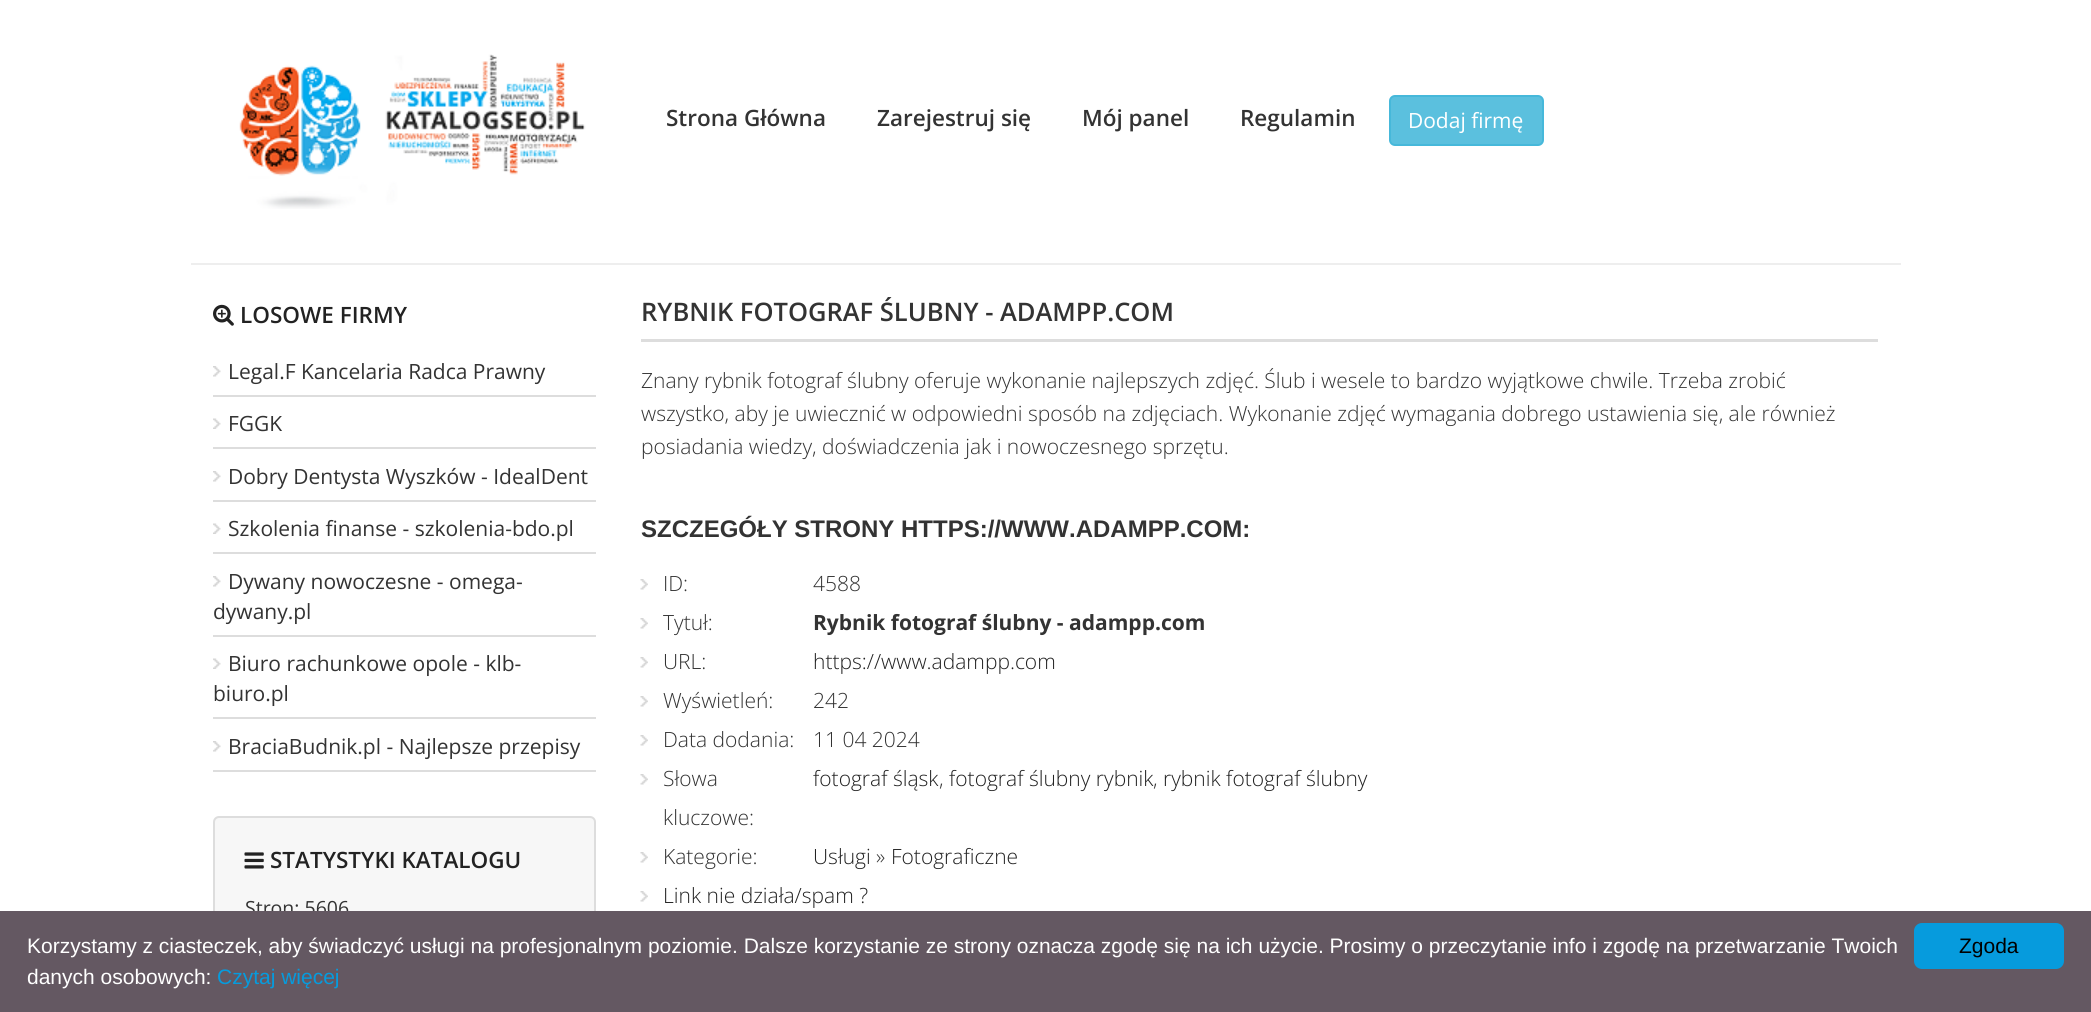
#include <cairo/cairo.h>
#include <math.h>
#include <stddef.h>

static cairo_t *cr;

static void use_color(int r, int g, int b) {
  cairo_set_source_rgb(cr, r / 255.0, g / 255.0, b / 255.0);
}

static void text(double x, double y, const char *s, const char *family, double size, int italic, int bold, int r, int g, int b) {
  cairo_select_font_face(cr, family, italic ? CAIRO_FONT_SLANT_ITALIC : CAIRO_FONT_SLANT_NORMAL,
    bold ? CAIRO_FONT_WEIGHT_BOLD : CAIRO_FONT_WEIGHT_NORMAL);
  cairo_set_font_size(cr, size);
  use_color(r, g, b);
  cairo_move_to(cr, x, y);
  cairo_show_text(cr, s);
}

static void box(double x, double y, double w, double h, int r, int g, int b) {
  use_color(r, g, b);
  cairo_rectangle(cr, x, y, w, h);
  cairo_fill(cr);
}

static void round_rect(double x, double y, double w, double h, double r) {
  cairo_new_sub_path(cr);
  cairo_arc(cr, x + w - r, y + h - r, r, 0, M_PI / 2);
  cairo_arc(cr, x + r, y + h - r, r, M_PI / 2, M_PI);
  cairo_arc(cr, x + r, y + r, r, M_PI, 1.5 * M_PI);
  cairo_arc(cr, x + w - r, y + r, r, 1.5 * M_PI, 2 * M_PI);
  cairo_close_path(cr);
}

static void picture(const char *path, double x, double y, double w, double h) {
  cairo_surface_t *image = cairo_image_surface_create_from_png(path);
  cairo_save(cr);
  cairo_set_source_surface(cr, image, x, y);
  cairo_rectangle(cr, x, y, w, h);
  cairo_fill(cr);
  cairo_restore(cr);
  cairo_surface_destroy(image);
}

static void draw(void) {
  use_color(255, 255, 255);
  cairo_paint(cr);
  picture("img_01.png", 239, 54, 347, 155);
  use_color(91, 192, 222);
  round_rect(1390, 96, 153, 49, 5);
  cairo_fill_preserve(cr);
  use_color(70, 184, 218);
  cairo_stroke(cr);
  box(191, 263, 1710, 2, 238, 238, 238);
  picture("img_02.png", 213, 304, 21, 22);
  box(213, 395, 383, 2, 221, 221, 221);
  picture("img_03.png", 213, 366, 8, 11);
  box(213, 447, 383, 2, 221, 221, 221);
  picture("img_04.png", 213, 418, 8, 11);
  box(213, 500, 383, 2, 221, 221, 221);
  picture("img_03.png", 213, 471, 8, 11);
  box(213, 552, 383, 2, 221, 221, 221);
  picture("img_04.png", 213, 523, 8, 11);
  box(213, 635, 383, 2, 221, 221, 221);
  picture("img_03.png", 213, 576, 8, 11);
  box(213, 717, 383, 2, 221, 221, 221);
  picture("img_04.png", 213, 658, 8, 11);
  box(213, 770, 383, 2, 221, 221, 221);
  picture("img_03.png", 213, 741, 8, 11);
  use_color(247, 247, 247);
  round_rect(214, 817, 381, 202, 5);
  cairo_fill_preserve(cr);
  use_color(221, 221, 221);
  cairo_stroke(cr);
  picture("img_05.png", 244, 852, 20, 17);
  box(641, 339, 1237, 3, 221, 221, 221);
  picture("img_06.png", 640, 579, 8, 11);
  picture("img_06.png", 640, 618, 8, 11);
  picture("img_06.png", 640, 657, 8, 11);
  picture("img_06.png", 640, 696, 8, 11);
  picture("img_06.png", 640, 735, 8, 11);
  picture("img_06.png", 640, 774, 8, 11);
  picture("img_06.png", 640, 852, 8, 11);
  picture("img_06.png", 640, 891, 8, 11);
  text(666, 126, "Strona Główna", "Open Sans SemiBold", 22.5, 0, 0, 51, 51, 51);
  text(877, 126, "Zarejestruj się", "Open Sans SemiBold", 22.5, 0, 0, 51, 51, 51);
  text(1082, 126, "Mój panel", "Open Sans SemiBold", 22.5, 0, 0, 51, 51, 51);
  text(1240, 126, "Regulamin", "Open Sans SemiBold", 22.5, 0, 0, 51, 51, 51);
  text(1408, 128, "Dodaj firmę", "Open Sans", 21, 0, 0, 255, 255, 255);
  text(240, 323, "LOSOWE FIRMY", "Open Sans SemiBold", 22.5, 0, 0, 34, 34, 34);
  text(228, 379, "Legal.F Kancelaria Radca Prawny", "Open Sans", 21, 0, 0, 51, 51, 51);
  text(228, 431, "FGGK", "Open Sans", 21, 0, 0, 51, 51, 51);
  text(228, 484, "Dobry Dentysta Wyszków - IdealDent", "Open Sans", 21, 0, 0, 51, 51, 51);
  text(228, 536, "Szkolenia finanse - szkolenia-bdo.pl", "Open Sans", 21, 0, 0, 51, 51, 51);
  text(228, 589, "Dywany nowoczesne - omega-", "Open Sans", 21, 0, 0, 51, 51, 51);
  text(213, 619, "dywany.pl", "Open Sans", 21, 0, 0, 51, 51, 51);
  text(228, 671, "Biuro rachunkowe opole - klb-", "Open Sans", 21, 0, 0, 51, 51, 51);
  text(213, 701, "biuro.pl", "Open Sans", 21, 0, 0, 51, 51, 51);
  text(228, 754, "BraciaBudnik.pl - Najlepsze przepisy", "Open Sans", 21, 0, 0, 51, 51, 51);
  text(270, 868, "STATYSTYKI KATALOGU", "Open Sans SemiBold", 22.5, 0, 0, 34, 34, 34);
  text(245, 915, "Stron: 5606", "Open Sans", 19.5, 0, 0, 51, 51, 51);
  text(641, 321, "RYBNIK FOTOGRAF ŚLUBNY - ADAMPP.COM", "Open Sans SemiBold", 25.5, 0, 0, 51, 51, 51);
  text(641, 388, "Znany rybnik fotograf ślubny oferuje wykonanie najlepszych zdjęć. Ślub i wesele to bardzo wyjątkowe chwile. Trzeba zrobić", "Open Sans Light", 21, 0, 0, 51, 51, 51);
  text(641, 421, "wszystko, aby je uwiecznić w odpowiedni sposób na zdjęciach. Wykonanie zdjęć wymagania dobrego ustawienia się, ale również", "Open Sans Light", 21, 0, 0, 51, 51, 51);
  text(641, 454, "posiadania wiedzy, doświadczenia jak i nowoczesnego sprzętu.", "Open Sans Light", 21, 0, 0, 51, 51, 51);
  text(641, 537, "SZCZEGÓŁY STRONY HTTPS://WWW.ADAMPP.COM:", "Liberation Sans", 24, 0, 1, 51, 51, 51);
  text(663, 591, "ID:", "Open Sans Light", 21, 0, 0, 51, 51, 51);
  text(813, 591, "4588", "Open Sans Light", 21, 0, 0, 51, 51, 51);
  text(663, 630, "Tytuł:", "Open Sans Light", 21, 0, 0, 51, 51, 51);
  text(813, 630, "Rybnik fotograf ślubny - adampp.com", "Open Sans", 21, 0, 1, 51, 51, 51);
  text(663, 669, "URL:", "Open Sans Light", 21, 0, 0, 51, 51, 51);
  text(813, 669, "https://www.adampp.com", "Open Sans Light", 21, 0, 0, 34, 34, 34);
  text(663, 708, "Wyświetleń:", "Open Sans Light", 21, 0, 0, 51, 51, 51);
  text(813, 708, "242", "Open Sans Light", 21, 0, 0, 51, 51, 51);
  text(663, 747, "Data dodania:", "Open Sans Light", 21, 0, 0, 51, 51, 51);
  text(813, 747, "11 04 2024", "Open Sans Light", 21, 0, 0, 51, 51, 51);
  text(663, 786, "Słowa", "Open Sans Light", 21, 0, 0, 51, 51, 51);
  text(663, 825, "kluczowe:", "Open Sans Light", 21, 0, 0, 51, 51, 51);
  text(813, 786, "fotograf śląsk", "Open Sans Light", 21, 0, 0, 34, 34, 34);
  text(939, 786, ",", "Open Sans Light", 21, 0, 0, 51, 51, 51);
  text(949, 786, "fotograf ślubny rybnik", "Open Sans Light", 21, 0, 0, 34, 34, 34);
  text(1153, 786, ",", "Open Sans Light", 21, 0, 0, 51, 51, 51);
  text(1163, 786, "rybnik fotograf ślubny", "Open Sans Light", 21, 0, 0, 34, 34, 34);
  text(663, 864, "Kategorie:", "Open Sans Light", 21, 0, 0, 51, 51, 51);
  text(813, 864, "Usługi", "Open Sans Light", 21, 0, 0, 34, 34, 34);
  text(876, 864, "»", "Open Sans Light", 21, 0, 0, 51, 51, 51);
  text(891, 864, "Fotograficzne", "Open Sans Light", 21, 0, 0, 34, 34, 34);
  text(663, 903, "Link nie działa/spam ?", "Open Sans Light", 21, 0, 0, 34, 34, 34);
  box(0, 911, 2091, 101, 100, 88, 98);
  text(27, 953, "Korzystamy z ciasteczek, aby świadczyć usługi na profesjonalnym poziomie. Dalsze korzystanie ze strony oznacza zgodę się na ich użycie. Prosimy o przeczytanie info i zgodę na przetwarzanie Twoich", "Liberation Sans", 21, 0, 0, 255, 255, 255);
  text(27, 984, "danych osobowych:", "Liberation Sans", 21, 0, 0, 255, 255, 255);
  text(217, 984, "Czytaj więcej", "Liberation Sans", 21, 0, 0, 6, 155, 221);
  round_rect(1914, 923, 150, 46, 8);
  cairo_fill(cr);
  text(1959, 953, "Zgoda", "Liberation Sans", 21, 0, 0, 0, 0, 0);
}

int main(void) {
  cairo_surface_t *surface = cairo_image_surface_create(CAIRO_FORMAT_RGB24, 2091, 1012);
  cr = cairo_create(surface);
  cairo_font_options_t *options = cairo_font_options_create();
  cairo_font_options_set_hint_metrics(options, CAIRO_HINT_METRICS_OFF);
  cairo_font_options_set_hint_style(options, CAIRO_HINT_STYLE_NONE);
  cairo_set_font_options(cr, options);
  cairo_set_miter_limit(cr, 4);
  draw();
  cairo_surface_write_to_png(surface, "out.png");
  cairo_font_options_destroy(options);
  cairo_destroy(cr);
  cairo_surface_destroy(surface);
  return 0;
}
